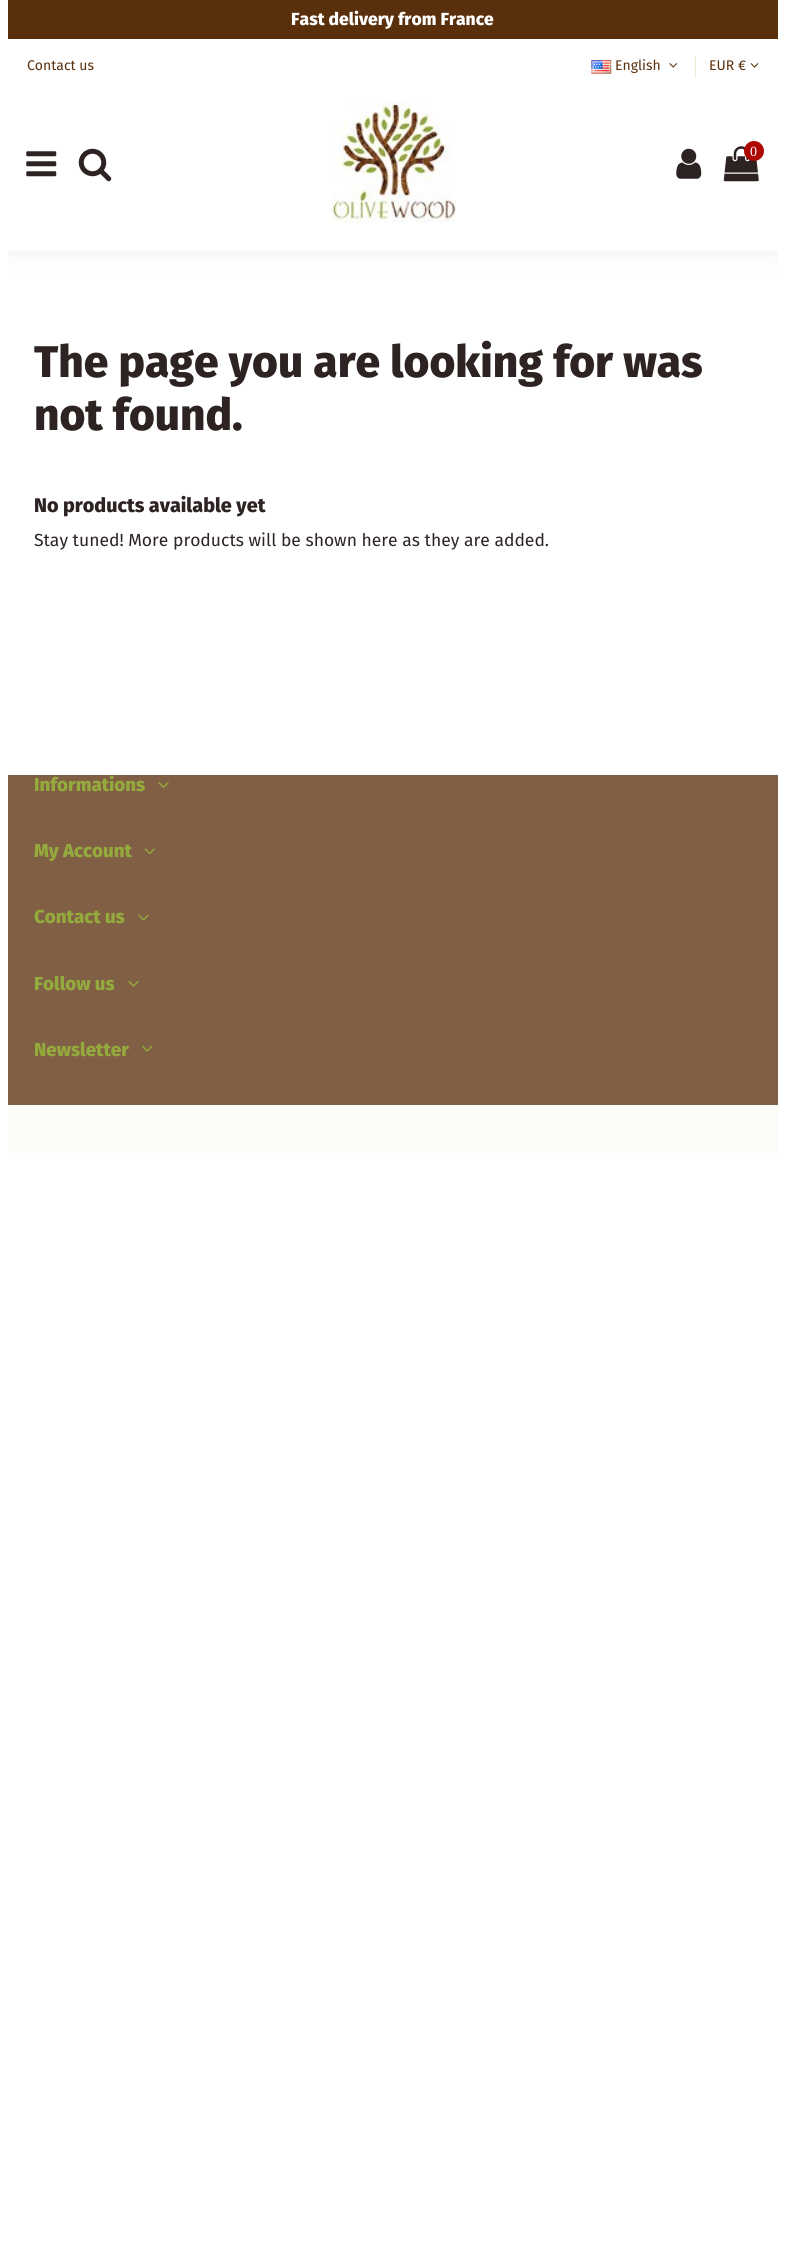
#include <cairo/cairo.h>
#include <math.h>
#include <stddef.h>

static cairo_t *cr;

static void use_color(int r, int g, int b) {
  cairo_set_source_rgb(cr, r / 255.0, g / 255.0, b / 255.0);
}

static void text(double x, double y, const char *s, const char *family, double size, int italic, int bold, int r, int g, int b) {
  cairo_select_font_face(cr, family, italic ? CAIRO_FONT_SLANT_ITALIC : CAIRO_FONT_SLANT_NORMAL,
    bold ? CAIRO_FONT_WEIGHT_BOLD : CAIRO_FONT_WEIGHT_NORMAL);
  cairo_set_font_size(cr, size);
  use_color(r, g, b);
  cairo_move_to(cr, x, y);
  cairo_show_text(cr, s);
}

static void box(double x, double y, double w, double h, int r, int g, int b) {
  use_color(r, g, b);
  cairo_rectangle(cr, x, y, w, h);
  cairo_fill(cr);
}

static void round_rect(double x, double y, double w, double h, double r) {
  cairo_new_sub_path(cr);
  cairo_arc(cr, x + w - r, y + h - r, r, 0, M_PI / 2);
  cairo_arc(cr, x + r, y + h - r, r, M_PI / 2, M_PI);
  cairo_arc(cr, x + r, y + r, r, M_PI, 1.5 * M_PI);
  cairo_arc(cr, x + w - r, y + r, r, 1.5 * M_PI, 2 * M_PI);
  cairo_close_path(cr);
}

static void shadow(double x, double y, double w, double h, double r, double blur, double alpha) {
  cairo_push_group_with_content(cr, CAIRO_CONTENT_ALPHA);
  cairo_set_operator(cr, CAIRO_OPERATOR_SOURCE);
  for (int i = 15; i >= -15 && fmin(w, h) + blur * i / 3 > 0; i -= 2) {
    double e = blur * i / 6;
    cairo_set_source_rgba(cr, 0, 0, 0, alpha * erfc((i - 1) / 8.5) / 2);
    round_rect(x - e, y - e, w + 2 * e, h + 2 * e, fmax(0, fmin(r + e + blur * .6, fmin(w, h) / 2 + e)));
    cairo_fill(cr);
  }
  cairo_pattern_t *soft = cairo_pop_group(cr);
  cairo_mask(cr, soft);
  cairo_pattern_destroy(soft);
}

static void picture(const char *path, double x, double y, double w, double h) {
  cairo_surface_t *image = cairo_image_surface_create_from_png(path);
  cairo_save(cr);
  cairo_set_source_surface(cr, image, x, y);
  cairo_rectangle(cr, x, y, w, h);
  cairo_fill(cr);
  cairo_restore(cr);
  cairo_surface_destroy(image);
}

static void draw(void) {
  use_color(255, 255, 255);
  cairo_paint(cr);
  cairo_save(cr);
  cairo_rectangle(cr, 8, 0, 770, 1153);
  cairo_clip(cr);
  use_color(0, 0, 0);
  shadow(8, 0, 770, 255, 0, 12.5, 0.05);
  cairo_restore(cr);
  box(8, 39, 770, 212, 255, 255, 255);
  box(8, 251, 770, 4, 248, 248, 248);
  box(8, 0, 770, 39, 90, 47, 12);
  picture("img_01.png", 591, 60, 21, 14);
  picture("img_02.png", 669, 63, 9, 5);
  box(695, 56, 1, 22, 234, 238, 216);
  picture("img_03.png", 750, 63, 9, 5);
  picture("img_04.png", 26, 151, 31, 26);
  picture("img_05.png", 78, 148, 34, 34);
  picture("img_06.png", 331, 102, 125, 121);
  picture("img_07.png", 676, 148, 26, 31);
  picture("img_08.png", 723, 146, 36, 36);
  use_color(173, 7, 0);
  cairo_arc(cr, 754, 151, 10, 0, 2 * M_PI);
  cairo_fill(cr);
  box(8, 775, 770, 330, 128, 95, 68);
  picture("img_09.png", 158, 782, 11, 6);
  picture("img_10.png", 144, 848, 11, 7);
  picture("img_11.png", 138, 914, 11, 7);
  picture("img_12.png", 128, 980, 11, 7);
  picture("img_13.png", 142, 1045, 11, 7);
  box(8, 1105, 770, 48, 252, 253, 246);
  text(291, 25, "Fast delivery from France", "Fira Sans ExtraBold", 17.5, 0, 0, 255, 255, 255);
  text(27, 70, "Contact us", "Fira Sans", 14, 0, 0, 90, 47, 12);
  text(615, 70, "English", "Fira Sans", 14, 0, 0, 90, 47, 12);
  text(709, 70, "EUR €", "Fira Sans", 14, 0, 0, 90, 47, 12);
  text(750, 156, "0", "Liberation Serif", 14, 0, 0, 255, 255, 255);
  text(34, 377, "The page you are looking for was", "Fira Sans ExtraBold", 44.3, 0, 0, 46, 35, 35);
  text(34, 430, "not found.", "Fira Sans ExtraBold", 44.3, 0, 0, 46, 35, 35);
  text(34, 512, "No products available yet", "Fira Sans ExtraBold", 19.75, 0, 0, 46, 35, 35);
  text(34, 546, "Stay tuned! More products will be shown here as they are added.", "Fira Sans", 17.5, 0, 0, 46, 35, 35);
  text(34, 791, "Informations", "Fira Sans ExtraBold", 18.75, 0, 0, 148, 170, 61);
  text(34, 857, "My Account", "Fira Sans ExtraBold", 18.75, 0, 0, 148, 170, 61);
  text(34, 923, "Contact us", "Fira Sans ExtraBold", 18.75, 0, 0, 148, 170, 61);
  text(34, 990, "Follow us", "Fira Sans ExtraBold", 18.75, 0, 0, 148, 170, 61);
  text(34, 1056, "Newsletter", "Fira Sans ExtraBold", 18.75, 0, 0, 148, 170, 61);
}

int main(void) {
  cairo_surface_t *surface = cairo_image_surface_create(CAIRO_FORMAT_RGB24, 785, 2243);
  cr = cairo_create(surface);
  cairo_font_options_t *options = cairo_font_options_create();
  cairo_font_options_set_hint_metrics(options, CAIRO_HINT_METRICS_OFF);
  cairo_font_options_set_hint_style(options, CAIRO_HINT_STYLE_NONE);
  cairo_set_font_options(cr, options);
  cairo_set_miter_limit(cr, 4);
  draw();
  cairo_surface_write_to_png(surface, "out.png");
  cairo_font_options_destroy(options);
  cairo_destroy(cr);
  cairo_surface_destroy(surface);
  return 0;
}
